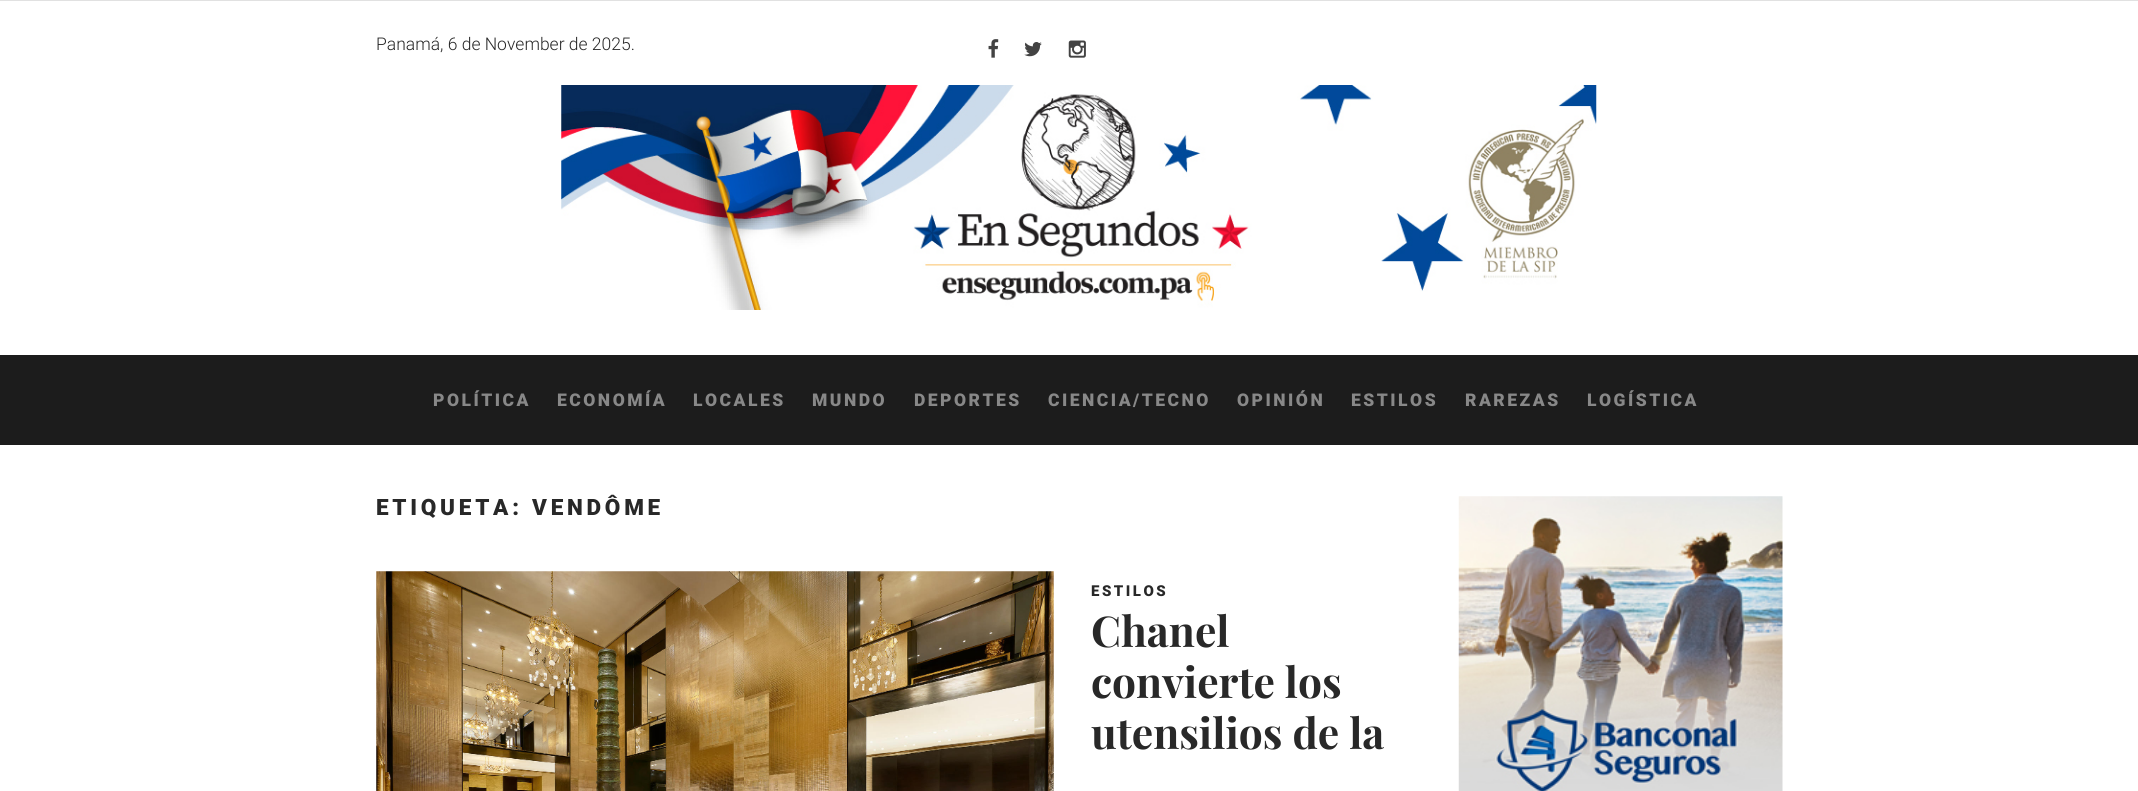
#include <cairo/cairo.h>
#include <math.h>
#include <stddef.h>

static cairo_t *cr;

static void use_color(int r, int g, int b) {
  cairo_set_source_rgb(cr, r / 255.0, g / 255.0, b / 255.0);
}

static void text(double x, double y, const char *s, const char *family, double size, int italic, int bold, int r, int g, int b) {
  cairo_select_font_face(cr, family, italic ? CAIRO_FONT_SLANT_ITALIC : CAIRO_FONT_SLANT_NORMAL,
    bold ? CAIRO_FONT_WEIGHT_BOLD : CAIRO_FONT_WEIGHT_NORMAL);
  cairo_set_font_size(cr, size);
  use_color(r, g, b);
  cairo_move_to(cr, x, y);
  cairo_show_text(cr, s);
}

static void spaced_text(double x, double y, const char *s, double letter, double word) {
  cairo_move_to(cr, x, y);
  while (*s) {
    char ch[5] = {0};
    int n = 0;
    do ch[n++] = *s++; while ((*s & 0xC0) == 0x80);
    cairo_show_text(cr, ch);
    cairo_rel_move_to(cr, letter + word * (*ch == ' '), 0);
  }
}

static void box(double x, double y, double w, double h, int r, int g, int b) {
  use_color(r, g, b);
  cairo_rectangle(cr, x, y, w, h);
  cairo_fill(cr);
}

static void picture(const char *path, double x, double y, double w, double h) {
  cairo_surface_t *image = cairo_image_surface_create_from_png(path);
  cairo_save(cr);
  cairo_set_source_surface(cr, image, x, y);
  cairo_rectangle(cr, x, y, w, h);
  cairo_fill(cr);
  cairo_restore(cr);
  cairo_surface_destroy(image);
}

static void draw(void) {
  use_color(255, 255, 255);
  cairo_paint(cr);
  box(0, 0, 2138, 1, 225, 225, 225);
  picture("img_01.png", 988, 39, 11, 19);
  picture("img_02.png", 1024, 42, 18, 15);
  picture("img_03.png", 1068, 40, 18, 18);
  picture("img_04.png", 561, 85, 1036, 225);
  box(0, 355, 2138, 90, 28, 28, 28);
  picture("img_05.png", 376, 571, 678, 220);
  picture("img_06.png", 1458, 496, 325, 295);
  text(376, 50, "Panamá, 6 de November de 2025.", "Roboto Light", 17.5, 0, 0, 40, 40, 40);
  cairo_select_font_face(cr, "Roboto Black", CAIRO_FONT_SLANT_NORMAL, CAIRO_FONT_WEIGHT_NORMAL);
  use_color(136, 136, 136);
  spaced_text(433, 406, "POLÍTICA", 2.5, 0);
  spaced_text(557, 406, "ECONOMÍA", 2.5, 0);
  spaced_text(693, 406, "LOCALES", 2.5, 0);
  spaced_text(812, 406, "MUNDO", 2.5, 0);
  spaced_text(914, 406, "DEPORTES", 2.5, 0);
  spaced_text(1048, 406, "CIENCIA/TECNO", 2.5, 0);
  spaced_text(1237, 406, "OPINIÓN", 2.5, 0);
  spaced_text(1351, 406, "ESTILOS", 2.5, 0);
  spaced_text(1465, 406, "RAREZAS", 2.5, 0);
  spaced_text(1587, 406, "LOGÍSTICA", 2.5, 0);
  cairo_set_font_size(cr, 22.5);
  use_color(40, 40, 40);
  spaced_text(376, 515, "ETIQUETA: VENDÔME", 3.75, 0);
  cairo_set_font_size(cr, 15);
  spaced_text(1091, 596, "ESTILOS", 2.5, 0);
  text(1091, 647, "Chanel", "Playfair Display", 42.5, 0, 1, 40, 40, 40);
  text(1091, 698, "convierte los", "Playfair Display", 42.5, 0, 1, 40, 40, 40);
  text(1091, 749, "utensilios de la", "Playfair Display", 42.5, 0, 1, 40, 40, 40);
}

int main(void) {
  cairo_surface_t *surface = cairo_image_surface_create(CAIRO_FORMAT_RGB24, 2138, 791);
  cr = cairo_create(surface);
  cairo_font_options_t *options = cairo_font_options_create();
  cairo_font_options_set_hint_metrics(options, CAIRO_HINT_METRICS_OFF);
  cairo_font_options_set_hint_style(options, CAIRO_HINT_STYLE_NONE);
  cairo_set_font_options(cr, options);
  cairo_set_miter_limit(cr, 4);
  draw();
  cairo_surface_write_to_png(surface, "out.png");
  cairo_font_options_destroy(options);
  cairo_destroy(cr);
  cairo_surface_destroy(surface);
  return 0;
}
